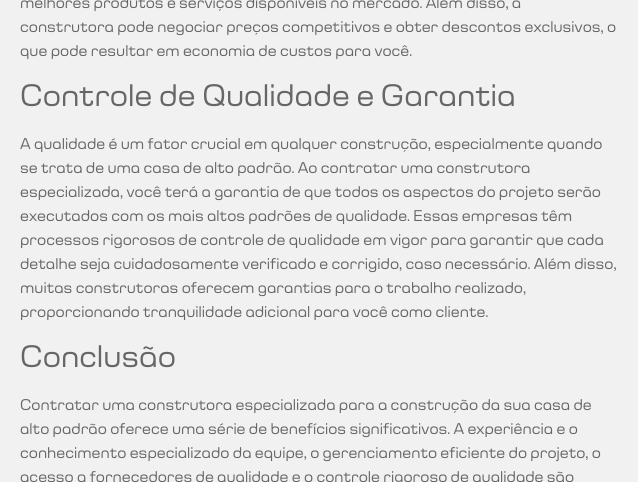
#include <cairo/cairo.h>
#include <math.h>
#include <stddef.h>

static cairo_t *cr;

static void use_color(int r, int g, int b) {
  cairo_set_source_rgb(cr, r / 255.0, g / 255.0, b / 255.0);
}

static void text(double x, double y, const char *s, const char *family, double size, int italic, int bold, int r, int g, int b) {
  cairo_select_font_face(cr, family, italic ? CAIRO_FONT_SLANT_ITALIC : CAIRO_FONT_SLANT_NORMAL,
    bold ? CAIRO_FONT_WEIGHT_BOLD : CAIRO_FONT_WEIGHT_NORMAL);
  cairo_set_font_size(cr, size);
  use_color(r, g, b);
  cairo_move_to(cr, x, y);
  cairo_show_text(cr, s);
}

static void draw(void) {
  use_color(241, 241, 241);
  cairo_paint(cr);
  text(20, 8, "melhores produtos e serviços disponíveis no mercado. Além disso, a", "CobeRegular", 16, 0, 0, 102, 102, 102);
  text(20, 32, "construtora pode negociar preços competitivos e obter descontos exclusivos, o", "CobeRegular", 16, 0, 0, 102, 102, 102);
  text(20, 56, "que pode resultar em economia de custos para você.", "CobeRegular", 16, 0, 0, 102, 102, 102);
  text(20, 106, "Controle de Qualidade e Garantia", "CobeRegular", 32, 0, 0, 102, 102, 102);
  text(20, 149, "A qualidade é um fator crucial em qualquer construção, especialmente quando", "CobeRegular", 16, 0, 0, 102, 102, 102);
  text(20, 173, "se trata de uma casa de alto padrão. Ao contratar uma construtora", "CobeRegular", 16, 0, 0, 102, 102, 102);
  text(20, 197, "especializada, você terá a garantia de que todos os aspectos do projeto serão", "CobeRegular", 16, 0, 0, 102, 102, 102);
  text(20, 221, "executados com os mais altos padrões de qualidade. Essas empresas têm", "CobeRegular", 16, 0, 0, 102, 102, 102);
  text(20, 245, "processos rigorosos de controle de qualidade em vigor para garantir que cada", "CobeRegular", 16, 0, 0, 102, 102, 102);
  text(20, 269, "detalhe seja cuidadosamente verificado e corrigido, caso necessário. Além disso,", "CobeRegular", 16, 0, 0, 102, 102, 102);
  text(20, 293, "muitas construtoras oferecem garantias para o trabalho realizado,", "CobeRegular", 16, 0, 0, 102, 102, 102);
  text(20, 317, "proporcionando tranquilidade adicional para você como cliente.", "CobeRegular", 16, 0, 0, 102, 102, 102);
  text(20, 367, "Conclusão", "CobeRegular", 32, 0, 0, 102, 102, 102);
  text(20, 410, "Contratar uma construtora especializada para a construção da sua casa de", "CobeRegular", 16, 0, 0, 102, 102, 102);
  text(20, 434, "alto padrão oferece uma série de benefícios significativos. A experiência e o", "CobeRegular", 16, 0, 0, 102, 102, 102);
  text(20, 458, "conhecimento especializado da equipe, o gerenciamento eficiente do projeto, o", "CobeRegular", 16, 0, 0, 102, 102, 102);
  text(20, 482, "acesso a fornecedores de qualidade e o controle rigoroso de qualidade são", "CobeRegular", 16, 0, 0, 102, 102, 102);
}

int main(void) {
  cairo_surface_t *surface = cairo_image_surface_create(CAIRO_FORMAT_RGB24, 638, 482);
  cr = cairo_create(surface);
  cairo_font_options_t *options = cairo_font_options_create();
  cairo_font_options_set_hint_metrics(options, CAIRO_HINT_METRICS_OFF);
  cairo_font_options_set_hint_style(options, CAIRO_HINT_STYLE_NONE);
  cairo_set_font_options(cr, options);
  cairo_set_miter_limit(cr, 4);
  draw();
  cairo_surface_write_to_png(surface, "out.png");
  cairo_font_options_destroy(options);
  cairo_destroy(cr);
  cairo_surface_destroy(surface);
  return 0;
}
